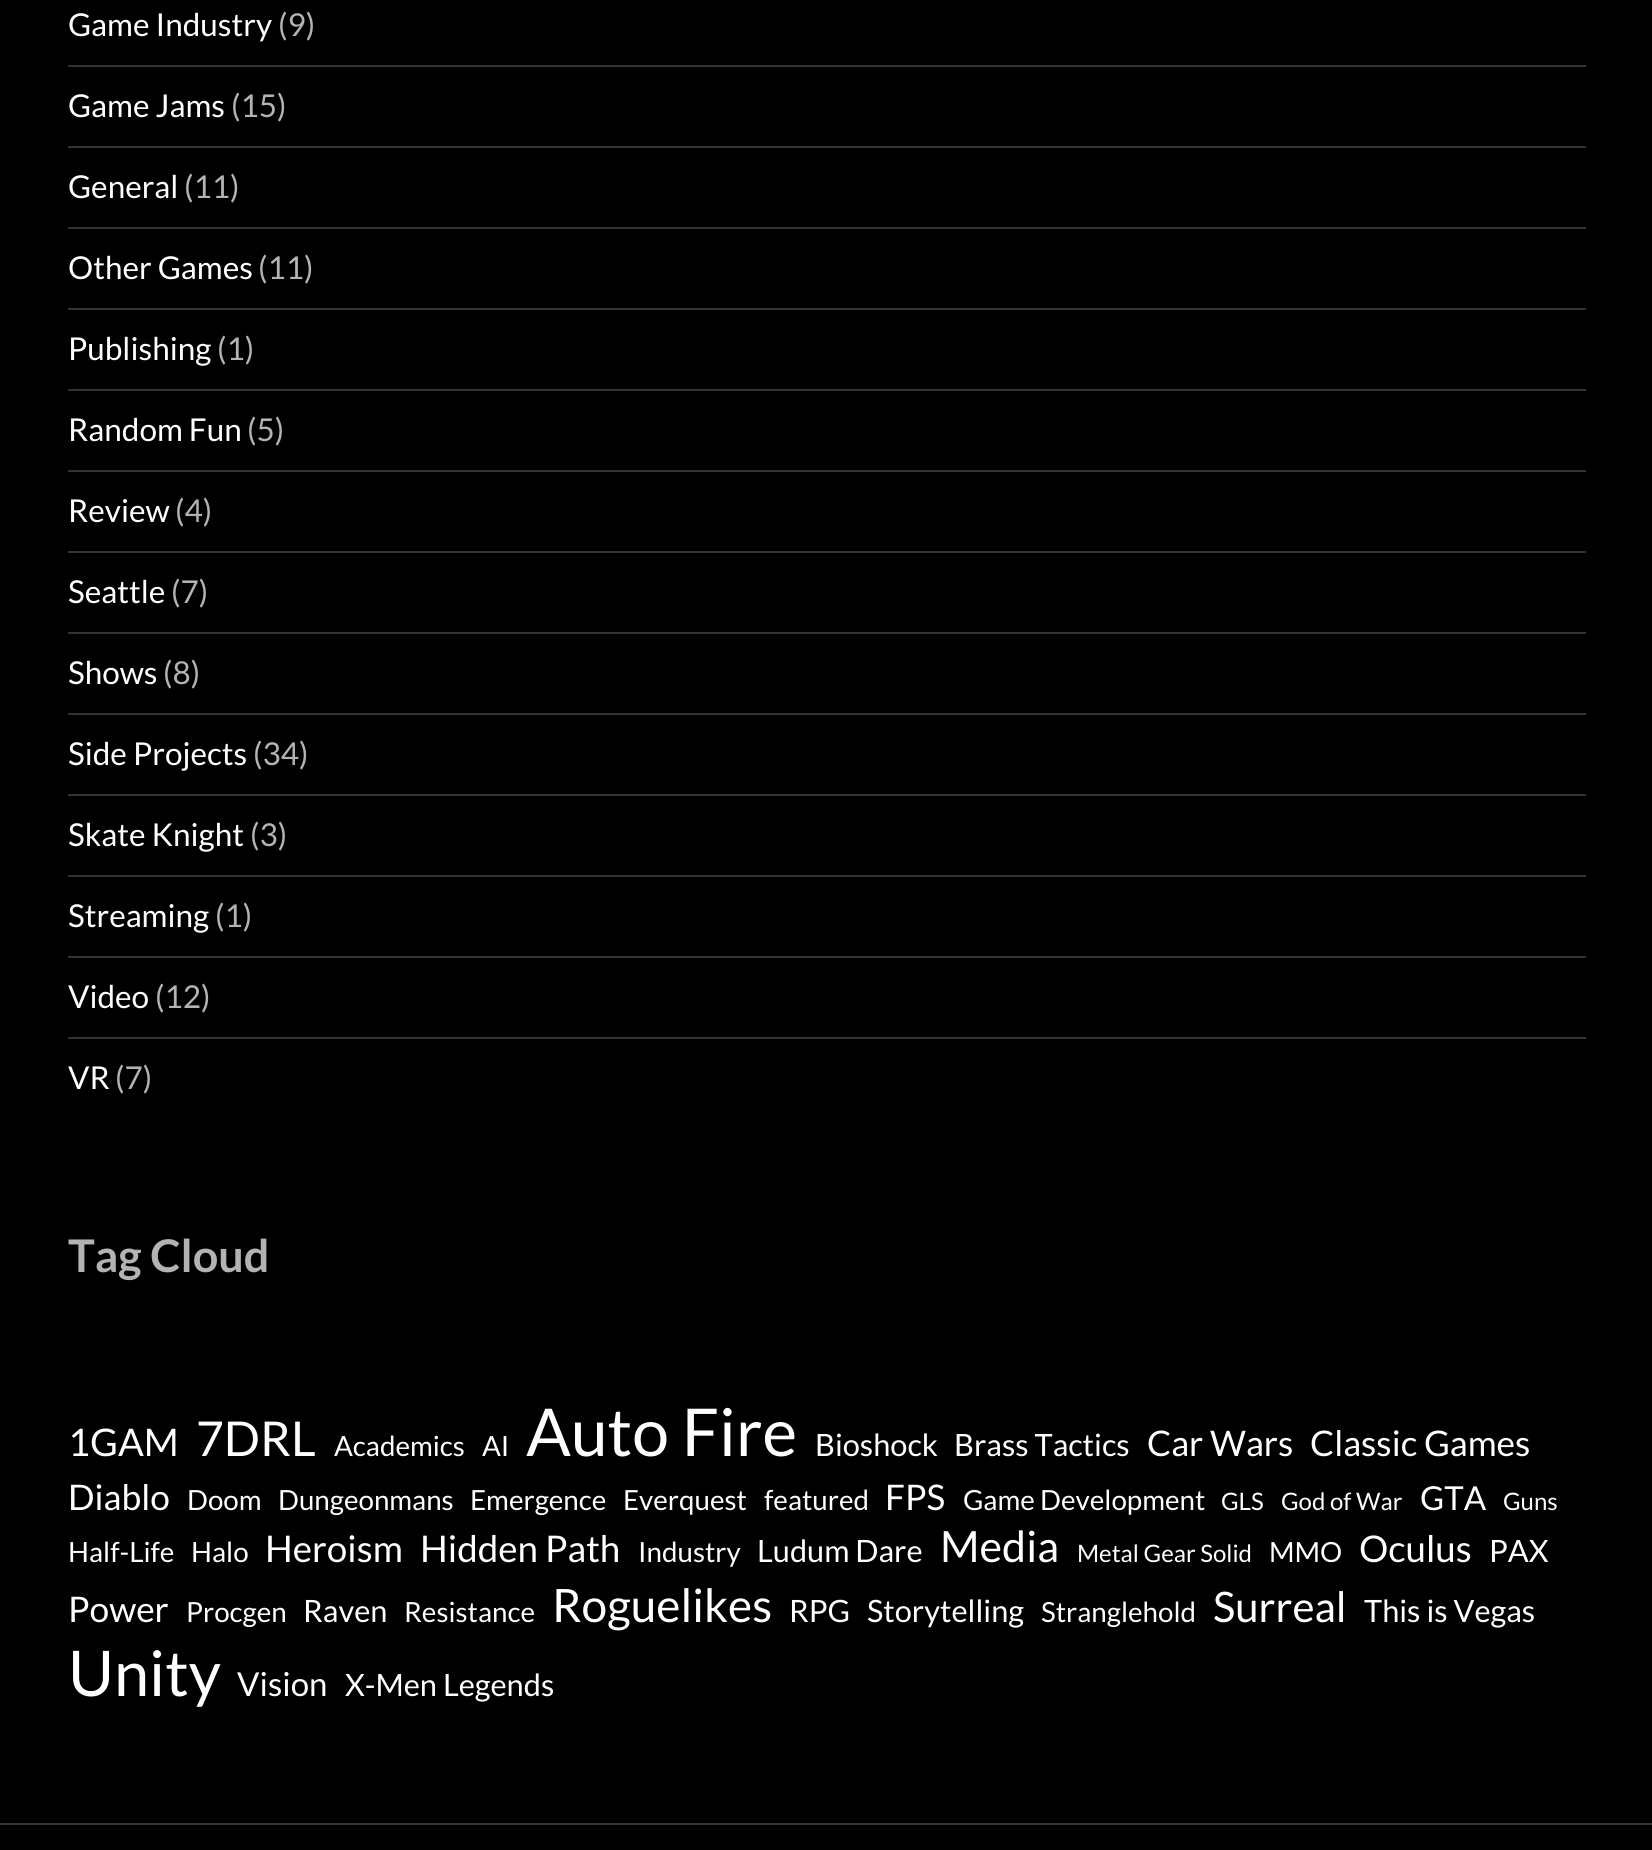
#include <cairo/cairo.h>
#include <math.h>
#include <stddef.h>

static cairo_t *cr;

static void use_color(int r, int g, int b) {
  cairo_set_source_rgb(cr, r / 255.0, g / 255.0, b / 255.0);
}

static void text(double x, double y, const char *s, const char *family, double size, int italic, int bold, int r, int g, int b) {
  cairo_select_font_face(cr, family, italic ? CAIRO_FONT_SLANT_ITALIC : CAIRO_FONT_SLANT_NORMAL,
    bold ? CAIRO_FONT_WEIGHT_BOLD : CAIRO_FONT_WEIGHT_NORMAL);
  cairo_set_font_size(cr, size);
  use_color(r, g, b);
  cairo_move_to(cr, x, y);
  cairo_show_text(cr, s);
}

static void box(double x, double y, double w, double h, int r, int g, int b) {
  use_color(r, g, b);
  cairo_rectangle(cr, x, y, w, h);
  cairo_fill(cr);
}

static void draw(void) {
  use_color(0, 0, 0);
  cairo_paint(cr);
  box(0, 1823, 1652, 2, 51, 51, 51);
  box(68, 65, 1518, 2, 51, 51, 51);
  box(68, 146, 1518, 2, 51, 51, 51);
  box(68, 227, 1518, 2, 51, 51, 51);
  box(68, 308, 1518, 2, 51, 51, 51);
  box(68, 389, 1518, 2, 51, 51, 51);
  box(68, 470, 1518, 2, 51, 51, 51);
  box(68, 551, 1518, 2, 51, 51, 51);
  box(68, 632, 1518, 2, 51, 51, 51);
  box(68, 713, 1518, 2, 51, 51, 51);
  box(68, 794, 1518, 2, 51, 51, 51);
  box(68, 875, 1518, 2, 51, 51, 51);
  box(68, 956, 1518, 2, 51, 51, 51);
  box(68, 1037, 1518, 2, 51, 51, 51);
  text(68, 36, "Game Industry", "Lato", 31.5, 0, 0, 255, 255, 255);
  text(278, 36, "(9)", "Lato", 31.5, 0, 0, 179, 179, 179);
  text(68, 117, "Game Jams", "Lato", 31.5, 0, 0, 255, 255, 255);
  text(231, 117, "(15)", "Lato", 31.5, 0, 0, 179, 179, 179);
  text(68, 198, "General", "Lato", 31.5, 0, 0, 255, 255, 255);
  text(184, 198, "(11)", "Lato", 31.5, 0, 0, 179, 179, 179);
  text(68, 279, "Other Games", "Lato", 31.5, 0, 0, 255, 255, 255);
  text(258, 279, "(11)", "Lato", 31.5, 0, 0, 179, 179, 179);
  text(68, 360, "Publishing", "Lato", 31.5, 0, 0, 255, 255, 255);
  text(217, 360, "(1)", "Lato", 31.5, 0, 0, 179, 179, 179);
  text(68, 441, "Random Fun", "Lato", 31.5, 0, 0, 255, 255, 255);
  text(247, 441, "(5)", "Lato", 31.5, 0, 0, 179, 179, 179);
  text(68, 522, "Review", "Lato", 31.5, 0, 0, 255, 255, 255);
  text(175, 522, "(4)", "Lato", 31.5, 0, 0, 179, 179, 179);
  text(68, 603, "Seattle", "Lato", 31.5, 0, 0, 255, 255, 255);
  text(171, 603, "(7)", "Lato", 31.5, 0, 0, 179, 179, 179);
  text(68, 684, "Shows", "Lato", 31.5, 0, 0, 255, 255, 255);
  text(163, 684, "(8)", "Lato", 31.5, 0, 0, 179, 179, 179);
  text(68, 765, "Side Projects", "Lato", 31.5, 0, 0, 255, 255, 255);
  text(253, 765, "(34)", "Lato", 31.5, 0, 0, 179, 179, 179);
  text(68, 846, "Skate Knight", "Lato", 31.5, 0, 0, 255, 255, 255);
  text(250, 846, "(3)", "Lato", 31.5, 0, 0, 179, 179, 179);
  text(68, 927, "Streaming", "Lato", 31.5, 0, 0, 255, 255, 255);
  text(215, 927, "(1)", "Lato", 31.5, 0, 0, 179, 179, 179);
  text(68, 1008, "Video", "Lato", 31.5, 0, 0, 255, 255, 255);
  text(155, 1008, "(12)", "Lato", 31.5, 0, 0, 179, 179, 179);
  text(68, 1089, "VR", "Lato", 31.5, 0, 0, 255, 255, 255);
  text(115, 1089, "(7)", "Lato", 31.5, 0, 0, 179, 179, 179);
  text(68, 1272, "Tag Cloud", "Lato", 45, 0, 1, 179, 179, 179);
  text(68, 1456, "1GAM", "Lato", 38, 0, 0, 255, 255, 255);
  text(196, 1456, "7DRL", "Lato", 48, 0, 0, 255, 255, 255);
  text(334, 1456, "Academics", "Lato", 27.75, 0, 0, 255, 255, 255);
  text(482, 1456, "AI", "Lato", 27.75, 0, 0, 255, 255, 255);
  text(526, 1456, "Auto Fire", "Lato", 66, 0, 0, 255, 255, 255);
  text(815, 1456, "Bioshock", "Lato", 30.75, 0, 0, 255, 255, 255);
  text(954, 1456, "Brass Tactics", "Lato", 30.75, 0, 0, 255, 255, 255);
  text(1147, 1456, "Car Wars", "Lato", 35.25, 0, 0, 255, 255, 255);
  text(1310, 1456, "Classic Games", "Lato", 35.25, 0, 0, 255, 255, 255);
  text(68, 1510, "Diablo", "Lato", 35.25, 0, 0, 255, 255, 255);
  text(187, 1510, "Doom", "Lato", 27.75, 0, 0, 255, 255, 255);
  text(278, 1510, "Dungeonmans", "Lato", 27.75, 0, 0, 255, 255, 255);
  text(470, 1510, "Emergence", "Lato", 27.75, 0, 0, 255, 255, 255);
  text(623, 1510, "Everquest", "Lato", 27.75, 0, 0, 255, 255, 255);
  text(764, 1510, "featured", "Lato", 27.75, 0, 0, 255, 255, 255);
  text(885, 1510, "FPS", "Lato", 35.25, 0, 0, 255, 255, 255);
  text(963, 1510, "Game Development", "Lato", 27.75, 0, 0, 255, 255, 255);
  text(1221, 1510, "GLS", "Lato", 24, 0, 0, 255, 255, 255);
  text(1281, 1510, "God of War", "Lato", 24, 0, 0, 255, 255, 255);
  text(1420, 1510, "GTA", "Lato", 33, 0, 0, 255, 255, 255);
  text(1503, 1510, "Guns", "Lato", 24, 0, 0, 255, 255, 255);
  text(68, 1562, "Half-Life", "Lato", 27.75, 0, 0, 255, 255, 255);
  text(191, 1562, "Halo", "Lato", 27.75, 0, 0, 255, 255, 255);
  text(265, 1562, "Heroism", "Lato", 36.75, 0, 0, 255, 255, 255);
  text(420, 1562, "Hidden Path", "Lato", 36.75, 0, 0, 255, 255, 255);
  text(638, 1562, "Industry", "Lato", 27.75, 0, 0, 255, 255, 255);
  text(757, 1562, "Ludum Dare", "Lato", 30.75, 0, 0, 255, 255, 255);
  text(940, 1562, "Media", "Lato", 43, 0, 0, 255, 255, 255);
  text(1077, 1562, "Metal Gear Solid", "Lato", 24, 0, 0, 255, 255, 255);
  text(1269, 1562, "MMO", "Lato", 27.75, 0, 0, 255, 255, 255);
  text(1359, 1562, "Oculus", "Lato", 36.75, 0, 0, 255, 255, 255);
  text(1489, 1562, "PAX", "Lato", 30.75, 0, 0, 255, 255, 255);
  text(68, 1622, "Power", "Lato", 35.25, 0, 0, 255, 255, 255);
  text(186, 1622, "Procgen", "Lato", 27.75, 0, 0, 255, 255, 255);
  text(303, 1622, "Raven", "Lato", 30.75, 0, 0, 255, 255, 255);
  text(404, 1622, "Resistance", "Lato", 27.75, 0, 0, 255, 255, 255);
  text(552, 1622, "Roguelikes", "Lato", 46, 0, 0, 255, 255, 255);
  text(789, 1622, "RPG", "Lato", 30.75, 0, 0, 255, 255, 255);
  text(867, 1622, "Storytelling", "Lato", 30.75, 0, 0, 255, 255, 255);
  text(1041, 1622, "Stranglehold", "Lato", 27.75, 0, 0, 255, 255, 255);
  text(1213, 1622, "Surreal", "Lato", 42, 0, 0, 255, 255, 255);
  text(1364, 1622, "This is Vegas", "Lato", 30.75, 0, 0, 255, 255, 255);
  text(68, 1696, "Unity", "Lato", 63, 0, 0, 255, 255, 255);
  text(237, 1696, "Vision", "Lato", 33, 0, 0, 255, 255, 255);
  text(345, 1696, "X-Men Legends", "Lato", 30.75, 0, 0, 255, 255, 255);
}

int main(void) {
  cairo_surface_t *surface = cairo_image_surface_create(CAIRO_FORMAT_RGB24, 1652, 1850);
  cr = cairo_create(surface);
  cairo_font_options_t *options = cairo_font_options_create();
  cairo_font_options_set_hint_metrics(options, CAIRO_HINT_METRICS_OFF);
  cairo_font_options_set_hint_style(options, CAIRO_HINT_STYLE_NONE);
  cairo_set_font_options(cr, options);
  cairo_set_miter_limit(cr, 4);
  draw();
  cairo_surface_write_to_png(surface, "out.png");
  cairo_font_options_destroy(options);
  cairo_destroy(cr);
  cairo_surface_destroy(surface);
  return 0;
}
